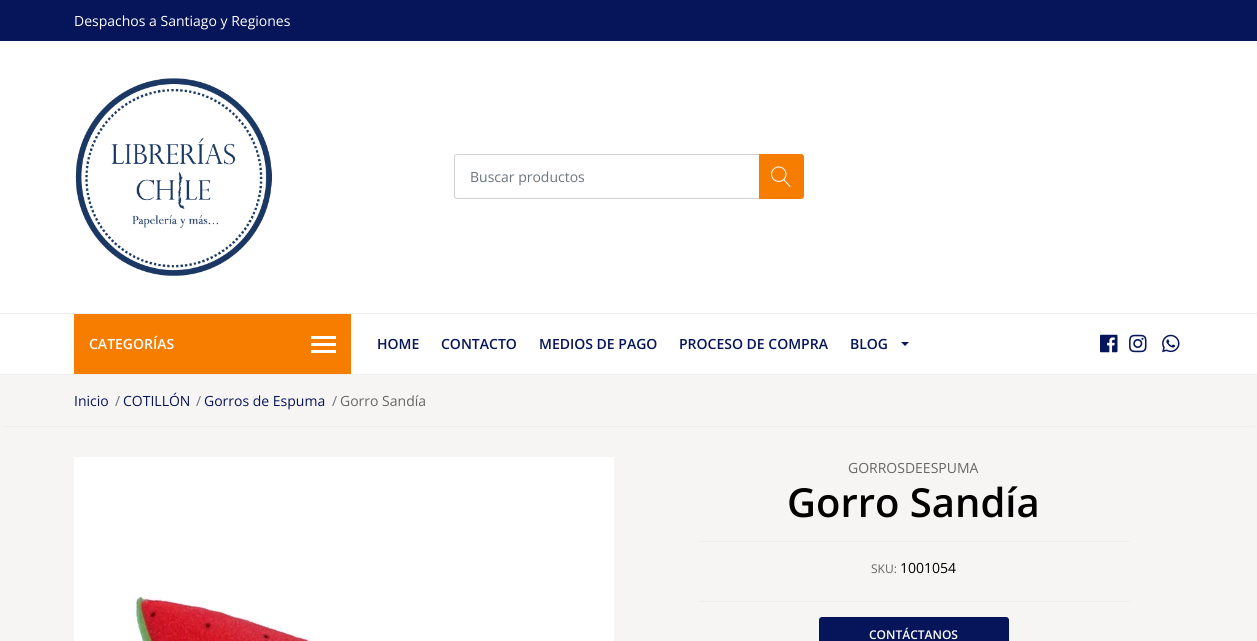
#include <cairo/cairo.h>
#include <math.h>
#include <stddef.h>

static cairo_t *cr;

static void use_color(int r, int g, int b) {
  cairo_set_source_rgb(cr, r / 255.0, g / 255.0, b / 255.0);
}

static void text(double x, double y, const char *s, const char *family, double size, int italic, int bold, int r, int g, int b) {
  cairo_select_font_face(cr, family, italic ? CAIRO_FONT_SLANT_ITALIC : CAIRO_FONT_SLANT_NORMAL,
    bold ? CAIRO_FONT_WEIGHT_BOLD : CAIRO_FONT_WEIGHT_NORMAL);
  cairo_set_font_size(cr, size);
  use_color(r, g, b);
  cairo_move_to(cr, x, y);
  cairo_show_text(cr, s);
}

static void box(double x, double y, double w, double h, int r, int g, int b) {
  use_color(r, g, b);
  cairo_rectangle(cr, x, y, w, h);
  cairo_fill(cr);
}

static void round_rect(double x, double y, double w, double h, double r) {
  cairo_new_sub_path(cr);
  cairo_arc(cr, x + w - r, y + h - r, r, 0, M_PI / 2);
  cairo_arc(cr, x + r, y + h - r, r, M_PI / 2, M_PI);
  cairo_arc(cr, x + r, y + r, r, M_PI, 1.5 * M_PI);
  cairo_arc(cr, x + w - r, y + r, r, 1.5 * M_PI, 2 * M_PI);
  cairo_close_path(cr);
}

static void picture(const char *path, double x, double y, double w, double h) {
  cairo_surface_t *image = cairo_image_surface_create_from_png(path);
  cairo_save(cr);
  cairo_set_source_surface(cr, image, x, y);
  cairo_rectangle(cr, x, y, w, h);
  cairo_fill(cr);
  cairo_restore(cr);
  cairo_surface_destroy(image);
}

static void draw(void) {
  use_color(247, 244, 244);
  cairo_paint(cr);
  box(0, 41, 1257, 333, 255, 255, 255);
  box(0, 0, 1257, 41, 6, 21, 90);
  picture("img_01.png", 75, 78, 197, 198);
  round_rect(454.5, 154.5, 349, 44, 2.5);
  use_color(209, 209, 209);
  cairo_set_line_width(cr, 1);
  cairo_stroke(cr);
  use_color(247, 125, 0);
  cairo_new_path(cr);
  cairo_move_to(cr, 759, 154);
  cairo_line_to(cr, 801, 154);
  cairo_curve_to(cr, 802.5, 154, 804, 155.5, 804, 157);
  cairo_line_to(cr, 804, 196);
  cairo_curve_to(cr, 804, 197.5, 802.5, 199, 801, 199);
  cairo_line_to(cr, 759, 199);
  cairo_close_path(cr);
  cairo_fill(cr);
  picture("img_02.png", 771, 166, 20, 21);
  box(0, 313, 1257, 1, 238, 238, 238);
  box(0, 374, 1257, 1, 238, 238, 238);
  box(74, 314, 277, 60, 247, 125, 0);
  box(311, 336, 25, 3, 255, 255, 255);
  box(311, 343, 25, 3, 255, 255, 255);
  box(311, 350, 25, 3, 255, 255, 255);
  use_color(6, 21, 90);
  cairo_new_path(cr);
  cairo_move_to(cr, 901, 342);
  cairo_line_to(cr, 909, 342);
  cairo_line_to(cr, 905, 346);
  cairo_close_path(cr);
  cairo_fill(cr);
  picture("img_03.png", 1100, 334, 18, 19);
  picture("img_04.png", 1129, 334, 18, 19);
  picture("img_05.png", 1162, 334, 18, 19);
  box(2, 426, 1253, 1, 238, 238, 238);
  picture("img_06.png", 74, 457, 540, 184);
  box(698, 541, 432, 1, 238, 238, 238);
  box(698, 601, 432, 1, 238, 238, 238);
  use_color(6, 21, 90);
  round_rect(819, 617, 190, 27, 3);
  cairo_fill(cr);
  text(74, 26, "Despachos a Santiago y Regiones", "Open Sans", 14, 0, 0, 255, 255, 255);
  text(470, 182, "Buscar productos", "Open Sans", 14, 0, 0, 108, 117, 125);
  text(89, 349, "CATEGORÍAS", "Open Sans SemiBold", 14, 0, 0, 255, 255, 255);
  text(377, 349, "HOME", "Open Sans SemiBold", 14, 0, 0, 6, 21, 90);
  text(441, 349, "CONTACTO", "Open Sans SemiBold", 14, 0, 0, 6, 21, 90);
  text(539, 349, "MEDIOS DE PAGO", "Open Sans SemiBold", 14, 0, 0, 6, 21, 90);
  text(679, 349, "PROCESO DE COMPRA", "Open Sans SemiBold", 14, 0, 0, 6, 21, 90);
  text(850, 349, "BLOG", "Open Sans SemiBold", 14, 0, 0, 6, 21, 90);
  text(74, 406, "Inicio", "Open Sans", 14, 0, 0, 6, 21, 90);
  text(115, 406, "/", "Open Sans", 14, 0, 0, 108, 117, 125);
  text(123, 406, "COTILLÓN", "Open Sans", 14, 0, 0, 6, 21, 90);
  text(196, 406, "/", "Open Sans", 14, 0, 0, 108, 117, 125);
  text(204, 406, "Gorros de Espuma", "Open Sans", 14, 0, 0, 6, 21, 90);
  text(332, 406, "/", "Open Sans", 14, 0, 0, 108, 117, 125);
  text(340, 406, "Gorro Sandía", "Open Sans", 14, 0, 0, 102, 102, 102);
  text(848, 473, "GORROSDEESPUMA", "Open Sans", 14, 0, 0, 102, 102, 102);
  text(787, 517, "Gorro Sandía", "Open Sans SemiBold", 40, 0, 0, 0, 0, 0);
  text(871, 573, "SKU:", "Open Sans", 12, 0, 0, 102, 102, 102);
  text(900, 573, "1001054", "Open Sans", 14, 0, 0, 0, 0, 0);
  text(869, 639, "CONTÁCTANOS", "Open Sans SemiBold", 12, 0, 0, 255, 255, 255);
}

int main(void) {
  cairo_surface_t *surface = cairo_image_surface_create(CAIRO_FORMAT_RGB24, 1257, 641);
  cr = cairo_create(surface);
  cairo_font_options_t *options = cairo_font_options_create();
  cairo_font_options_set_hint_metrics(options, CAIRO_HINT_METRICS_OFF);
  cairo_font_options_set_hint_style(options, CAIRO_HINT_STYLE_NONE);
  cairo_set_font_options(cr, options);
  cairo_set_miter_limit(cr, 4);
  draw();
  cairo_surface_write_to_png(surface, "out.png");
  cairo_font_options_destroy(options);
  cairo_destroy(cr);
  cairo_surface_destroy(surface);
  return 0;
}
